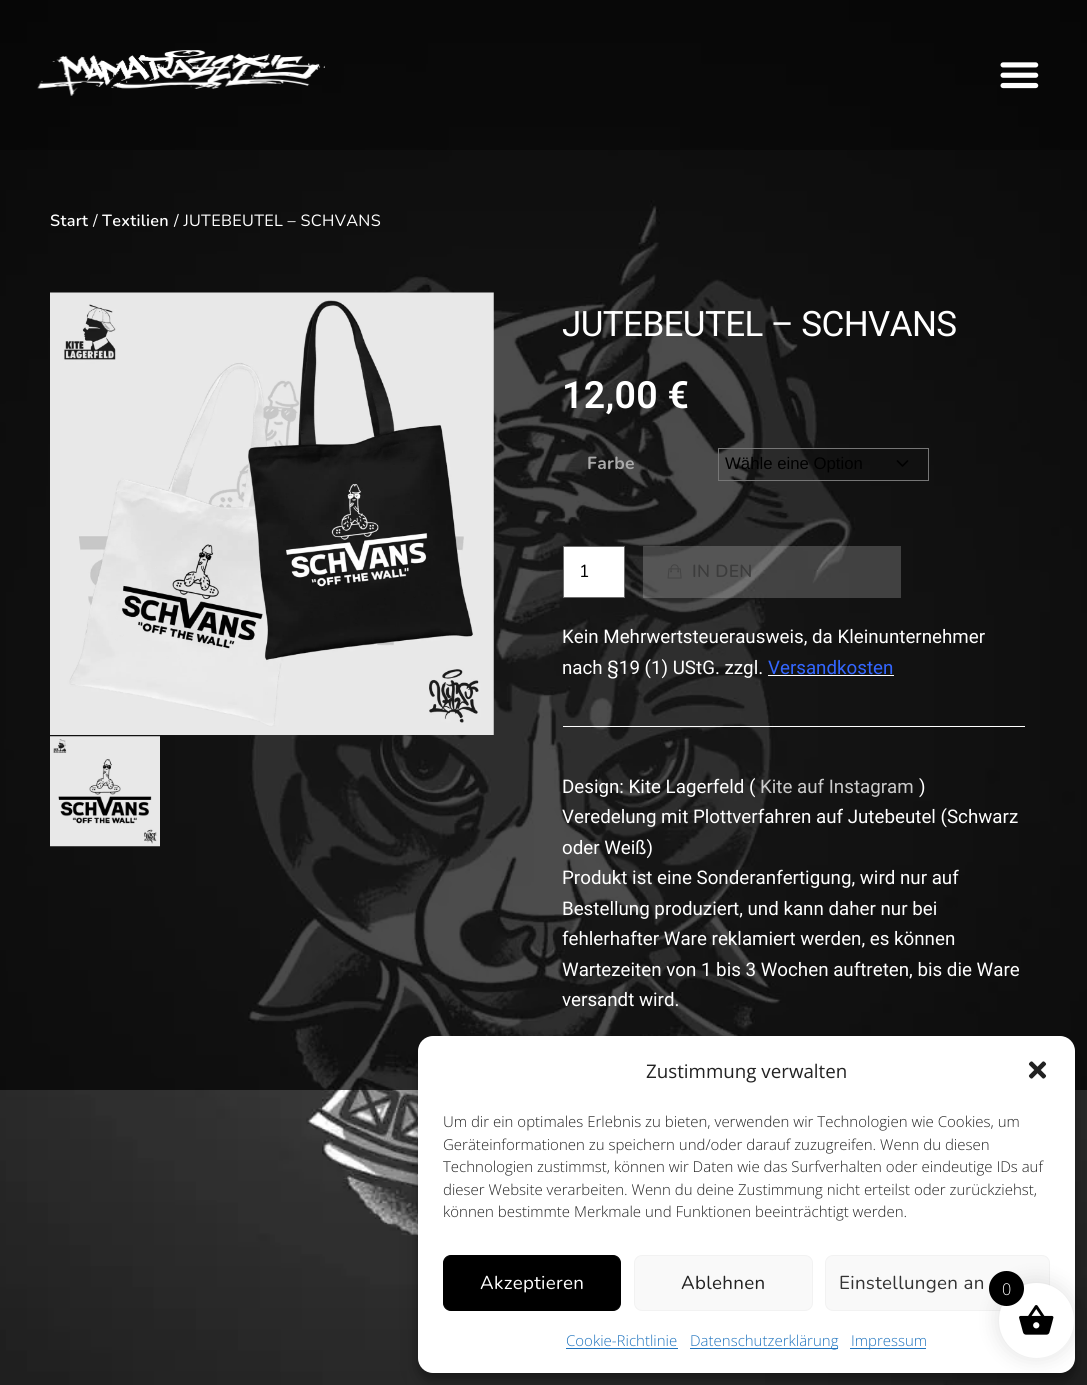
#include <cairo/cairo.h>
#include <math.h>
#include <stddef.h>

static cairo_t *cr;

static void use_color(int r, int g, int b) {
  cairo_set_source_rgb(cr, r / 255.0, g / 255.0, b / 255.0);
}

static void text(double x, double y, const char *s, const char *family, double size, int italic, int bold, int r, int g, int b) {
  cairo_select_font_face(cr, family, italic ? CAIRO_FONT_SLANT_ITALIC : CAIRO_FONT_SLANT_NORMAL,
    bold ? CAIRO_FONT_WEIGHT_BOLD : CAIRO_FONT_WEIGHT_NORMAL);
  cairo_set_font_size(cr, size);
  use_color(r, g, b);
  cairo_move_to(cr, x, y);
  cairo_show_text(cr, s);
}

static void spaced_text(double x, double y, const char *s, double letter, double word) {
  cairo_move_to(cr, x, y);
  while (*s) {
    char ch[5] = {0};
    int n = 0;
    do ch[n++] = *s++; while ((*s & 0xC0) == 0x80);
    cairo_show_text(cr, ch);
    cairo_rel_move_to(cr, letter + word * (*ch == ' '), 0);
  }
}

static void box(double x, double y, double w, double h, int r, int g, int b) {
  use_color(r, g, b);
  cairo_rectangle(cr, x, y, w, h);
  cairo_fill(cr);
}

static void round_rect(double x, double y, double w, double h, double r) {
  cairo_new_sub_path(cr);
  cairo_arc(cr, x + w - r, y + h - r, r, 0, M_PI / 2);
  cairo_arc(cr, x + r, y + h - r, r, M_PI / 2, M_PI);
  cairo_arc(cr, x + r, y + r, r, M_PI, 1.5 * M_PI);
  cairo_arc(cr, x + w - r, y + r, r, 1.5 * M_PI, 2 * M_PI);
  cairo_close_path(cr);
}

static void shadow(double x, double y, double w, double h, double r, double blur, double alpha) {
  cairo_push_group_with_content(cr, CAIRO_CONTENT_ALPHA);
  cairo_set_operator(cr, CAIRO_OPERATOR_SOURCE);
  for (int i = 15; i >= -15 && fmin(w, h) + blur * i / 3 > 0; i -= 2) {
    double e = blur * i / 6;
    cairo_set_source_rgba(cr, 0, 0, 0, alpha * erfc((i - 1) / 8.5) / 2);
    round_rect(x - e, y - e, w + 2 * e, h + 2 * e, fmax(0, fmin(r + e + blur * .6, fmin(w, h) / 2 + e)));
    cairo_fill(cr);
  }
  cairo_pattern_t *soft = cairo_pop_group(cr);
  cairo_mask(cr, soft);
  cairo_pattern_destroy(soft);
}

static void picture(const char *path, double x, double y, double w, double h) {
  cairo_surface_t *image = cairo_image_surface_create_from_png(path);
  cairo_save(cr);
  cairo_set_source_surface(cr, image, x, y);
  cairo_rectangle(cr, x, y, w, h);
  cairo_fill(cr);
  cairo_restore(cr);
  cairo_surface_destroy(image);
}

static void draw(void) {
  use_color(255, 255, 255);
  cairo_paint(cr);
  picture("img_01.png", 0, 0, 1087, 1385);
  cairo_set_source_rgba(cr, 0, 0, 0, 0.8);
  cairo_rectangle(cr, 0, 0, 1087, 150);
  cairo_fill(cr);
  picture("img_02.png", 37, 50, 288, 46);
  picture("img_03.png", 1000, 62, 39, 27);
  cairo_set_source_rgba(cr, 0, 0, 0, 0.7);
  cairo_rectangle(cr, 0, 150, 1087, 940);
  cairo_fill(cr);
  picture("img_04.png", 50, 292, 444, 443);
  picture("img_05.png", 50, 736, 110, 111);
  cairo_new_path(cr);
  cairo_move_to(cr, 897.5, 461);
  cairo_line_to(cr, 902.5, 466);
  cairo_line_to(cr, 907.5, 461);
  use_color(0, 0, 0);
  cairo_set_line_width(cr, 1.7);
  cairo_set_line_cap(cr, CAIRO_LINE_CAP_ROUND);
  cairo_set_line_join(cr, CAIRO_LINE_JOIN_ROUND);
  cairo_stroke(cr);
  cairo_rectangle(cr, 718.5, 448.5, 210, 32);
  use_color(118, 118, 118);
  cairo_set_line_width(cr, 1);
  cairo_set_line_cap(cr, CAIRO_LINE_CAP_BUTT);
  cairo_set_line_join(cr, CAIRO_LINE_JOIN_MITER);
  cairo_stroke(cr);
  use_color(255, 255, 255);
  cairo_rectangle(cr, 563.5, 546.5, 61, 51);
  cairo_fill_preserve(cr);
  use_color(108, 108, 108);
  cairo_stroke(cr);
  cairo_set_source_rgba(cr, 1, 1, 1, 0.2);
  cairo_rectangle(cr, 643, 546, 258, 52);
  cairo_fill(cr);
  picture("img_06.png", 667, 564, 15, 15);
  box(768, 675, 126, 1, 255, 255, 255);
  box(563, 726, 462, 1, 255, 255, 255);
  use_color(0, 0, 0);
  shadow(418, 1044, 657, 336, 15, 4, 0.23);
  shadow(418, 1049, 657, 336, 15, 12.5, 0.19);
  use_color(255, 255, 255);
  round_rect(418, 1036, 657, 337, 15);
  cairo_fill(cr);
  picture("img_07.png", 1028, 1061, 19, 18);
  use_color(0, 0, 0);
  round_rect(443.5, 1255.5, 177, 55, 7.5);
  cairo_fill_preserve(cr);
  cairo_stroke(cr);
  use_color(249, 249, 249);
  round_rect(634.5, 1255.5, 178, 55, 7.5);
  cairo_fill_preserve(cr);
  use_color(242, 242, 242);
  cairo_stroke(cr);
  use_color(249, 249, 249);
  round_rect(825.5, 1255.5, 224, 55, 7.5);
  cairo_fill_preserve(cr);
  use_color(242, 242, 242);
  cairo_stroke(cr);
  box(566, 1348, 112, 1, 30, 115, 190);
  box(690, 1348, 148, 1, 30, 115, 190);
  box(850, 1348, 76, 1, 30, 115, 190);
  use_color(0, 0, 0);
  shadow(996, 1280, 80, 80, 40, 9.5, 0.1);
  use_color(255, 255, 255);
  cairo_arc(cr, 1036.5, 1320.5, 37.5, 0, 2 * M_PI);
  cairo_fill(cr);
  picture("img_08.png", 1019, 1305, 35, 30);
  use_color(0, 0, 0);
  cairo_arc(cr, 1006.5, 1288.5, 17.5, 0, 2 * M_PI);
  cairo_fill(cr);
  cairo_select_font_face(cr, "Nunito ExtraLight", CAIRO_FONT_SLANT_NORMAL, CAIRO_FONT_WEIGHT_NORMAL);
  cairo_set_font_size(cr, 16.25);
  use_color(255, 255, 255);
  spaced_text(50, 226, "Start", 0.3, 0);
  cairo_select_font_face(cr, "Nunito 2 ExtraLight", CAIRO_FONT_SLANT_NORMAL, CAIRO_FONT_WEIGHT_NORMAL);
  spaced_text(93, 226, "/", 0.3, 0);
  cairo_select_font_face(cr, "Nunito ExtraLight", CAIRO_FONT_SLANT_NORMAL, CAIRO_FONT_WEIGHT_NORMAL);
  spaced_text(102, 226, "Textilien", 0.3, 0);
  cairo_select_font_face(cr, "Nunito 2 ExtraLight", CAIRO_FONT_SLANT_NORMAL, CAIRO_FONT_WEIGHT_NORMAL);
  spaced_text(174, 226, "/ JUTEBEUTEL – SCHVANS", 0.3, 0);
  cairo_select_font_face(cr, "Roboto", CAIRO_FONT_SLANT_NORMAL, CAIRO_FONT_WEIGHT_NORMAL);
  cairo_set_font_size(cr, 35);
  spaced_text(562, 336, "JUTEBEUTEL – SCHVANS", -0.6, 0);
  cairo_select_font_face(cr, "Roboto SemiBold", CAIRO_FONT_SLANT_NORMAL, CAIRO_FONT_WEIGHT_NORMAL);
  cairo_set_font_size(cr, 37.5);
  spaced_text(562, 408, "12,00 €", 0.3, 0);
  cairo_select_font_face(cr, "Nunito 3 ExtraLight", CAIRO_FONT_SLANT_NORMAL, CAIRO_FONT_WEIGHT_NORMAL);
  cairo_set_font_size(cr, 17.5);
  use_color(170, 170, 170);
  spaced_text(587, 469, "Farbe", 0.3, 0);
  text(725, 469, "Wähle eine Option", "Liberation Sans", 16.75, 0, 0, 0, 0, 0);
  cairo_select_font_face(cr, "Nunito 2 ExtraLight", CAIRO_FONT_SLANT_NORMAL, CAIRO_FONT_WEIGHT_NORMAL);
  cairo_set_font_size(cr, 17.5);
  spaced_text(579, 577, "1", 0.3, 0);
  cairo_select_font_face(cr, "Nunito ExtraLight", CAIRO_FONT_SLANT_NORMAL, CAIRO_FONT_WEIGHT_NORMAL);
  use_color(60, 60, 60);
  spaced_text(692, 577, "IN DEN", 0.3, 0);
  text(562, 643, "Kein Mehrwertsteuerausweis, da Kleinunternehmer", "Roboto", 18.75, 0, 0, 255, 255, 255);
  text(562, 674, "nach §19 (1) UStG. zzgl.", "Roboto", 18.75, 0, 0, 255, 255, 255);
  text(768, 674, "Versandkosten", "Roboto", 18.75, 0, 0, 51, 102, 255);
  text(562, 793, "Design: Kite Lagerfeld (", "Roboto", 18.75, 0, 0, 255, 255, 255);
  text(760, 793, "Kite auf Instagram", "Roboto", 18.75, 0, 0, 203, 203, 203);
  text(919, 793, ")", "Roboto", 18.75, 0, 0, 255, 255, 255);
  text(562, 823, "Veredelung mit Plottverfahren auf Jutebeutel (Schwarz", "Roboto", 18.75, 0, 0, 255, 255, 255);
  text(562, 854, "oder Weiß)", "Roboto", 18.75, 0, 0, 255, 255, 255);
  text(562, 884, "Produkt ist eine Sonderanfertigung, wird nur auf", "Roboto", 18.75, 0, 0, 255, 255, 255);
  text(562, 915, "Bestellung produziert, und kann daher nur bei", "Roboto", 18.75, 0, 0, 255, 255, 255);
  text(562, 945, "fehlerhafter Ware reklamiert werden, es können", "Roboto", 18.75, 0, 0, 255, 255, 255);
  text(562, 976, "Wartezeiten von 1 bis 3 Wochen auftreten, bis die Ware", "Roboto", 18.75, 0, 0, 255, 255, 255);
  text(562, 1006, "versandt wird.", "Roboto", 18.75, 0, 0, 255, 255, 255);
  text(646, 1078, "Zustimmung verwalten", "Open Sans", 18.75, 0, 0, 34, 34, 34);
  text(443, 1127, "Um dir ein optimales Erlebnis zu bieten, verwenden wir Technologien wie Cookies, um", "Open Sans Light", 15, 0, 0, 34, 34, 34);
  text(443, 1150, "Geräteinformationen zu speichern und/oder darauf zuzugreifen. Wenn du diesen", "Open Sans Light", 15, 0, 0, 34, 34, 34);
  text(443, 1172, "Technologien zustimmst, können wir Daten wie das Surfverhalten oder eindeutige IDs auf", "Open Sans Light", 15, 0, 0, 34, 34, 34);
  text(443, 1195, "dieser Website verarbeiten. Wenn du deine Zustimmung nicht erteilst oder zurückziehst,", "Open Sans Light", 15, 0, 0, 34, 34, 34);
  text(443, 1217, "können bestimmte Merkmale und Funktionen beeinträchtigt werden.", "Open Sans Light", 15, 0, 0, 34, 34, 34);
  cairo_select_font_face(cr, "Nunito 2 ExtraLight", CAIRO_FONT_SLANT_NORMAL, CAIRO_FONT_WEIGHT_NORMAL);
  cairo_set_font_size(cr, 18.75);
  use_color(255, 255, 255);
  spaced_text(480, 1289, "Akzeptieren", 0.3, 0);
  use_color(34, 34, 34);
  spaced_text(681, 1289, "Ablehnen", 0.3, 0);
  use_color(51, 51, 51);
  spaced_text(839, 1289, "Einstellungen an", 0.3, 0);
  text(566, 1346, "Cookie-Richtlinie", "Open Sans Light", 15, 0, 0, 30, 115, 190);
  text(690, 1346, "Datenschutzerklärung", "Open Sans Light", 15, 0, 0, 30, 115, 190);
  text(851, 1346, "Impressum", "Open Sans Light", 15, 0, 0, 30, 115, 190);
  text(1002, 1295, "0", "Open Sans Light", 16.25, 0, 0, 255, 255, 255);
}

int main(void) {
  cairo_surface_t *surface = cairo_image_surface_create(CAIRO_FORMAT_RGB24, 1087, 1385);
  cr = cairo_create(surface);
  cairo_font_options_t *options = cairo_font_options_create();
  cairo_font_options_set_hint_metrics(options, CAIRO_HINT_METRICS_OFF);
  cairo_font_options_set_hint_style(options, CAIRO_HINT_STYLE_NONE);
  cairo_set_font_options(cr, options);
  cairo_set_miter_limit(cr, 4);
  draw();
  cairo_surface_write_to_png(surface, "out.png");
  cairo_font_options_destroy(options);
  cairo_destroy(cr);
  cairo_surface_destroy(surface);
  return 0;
}
